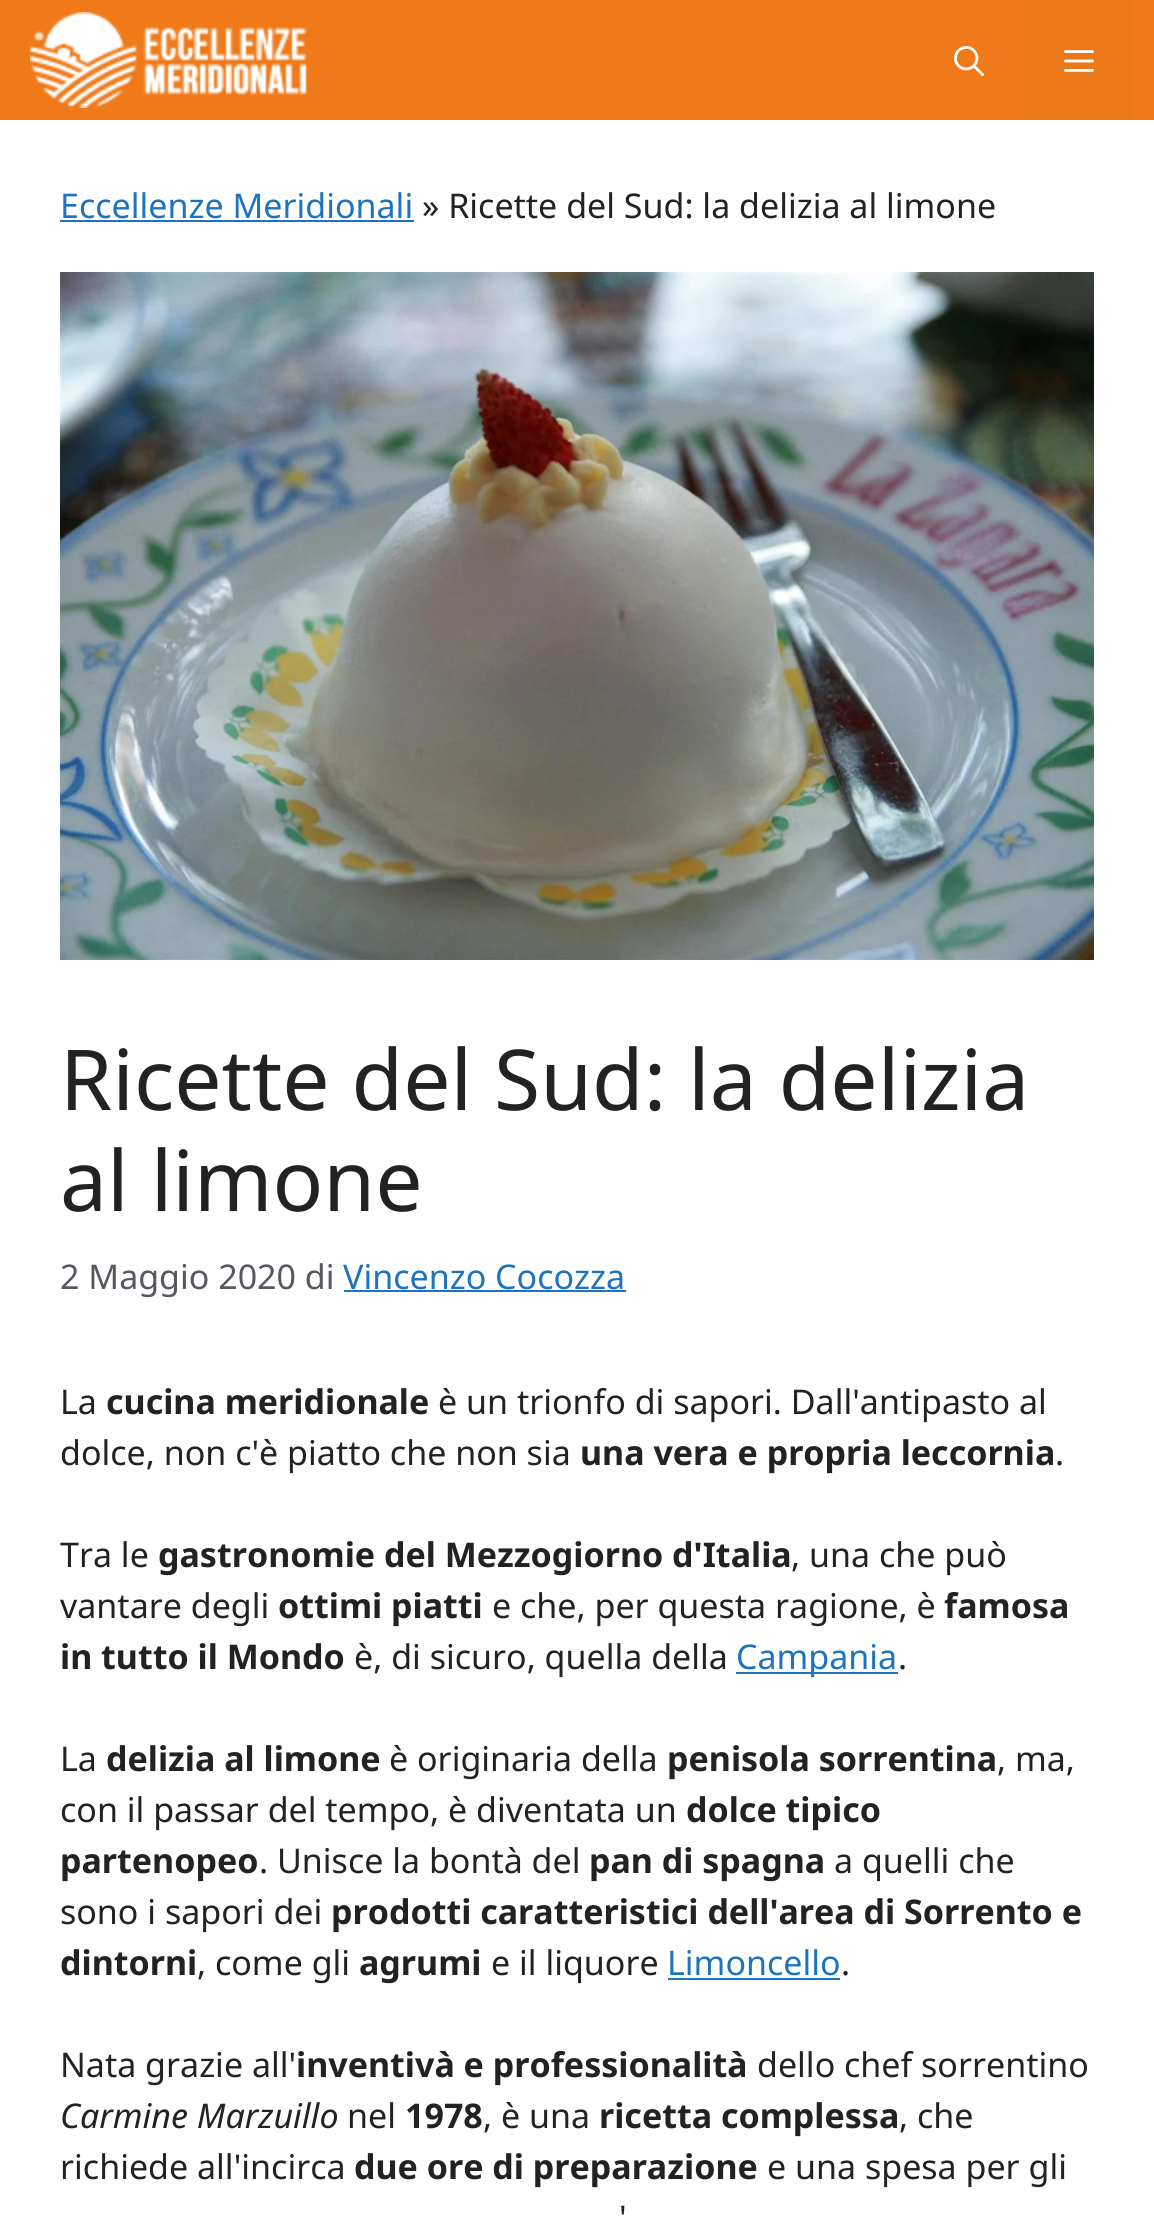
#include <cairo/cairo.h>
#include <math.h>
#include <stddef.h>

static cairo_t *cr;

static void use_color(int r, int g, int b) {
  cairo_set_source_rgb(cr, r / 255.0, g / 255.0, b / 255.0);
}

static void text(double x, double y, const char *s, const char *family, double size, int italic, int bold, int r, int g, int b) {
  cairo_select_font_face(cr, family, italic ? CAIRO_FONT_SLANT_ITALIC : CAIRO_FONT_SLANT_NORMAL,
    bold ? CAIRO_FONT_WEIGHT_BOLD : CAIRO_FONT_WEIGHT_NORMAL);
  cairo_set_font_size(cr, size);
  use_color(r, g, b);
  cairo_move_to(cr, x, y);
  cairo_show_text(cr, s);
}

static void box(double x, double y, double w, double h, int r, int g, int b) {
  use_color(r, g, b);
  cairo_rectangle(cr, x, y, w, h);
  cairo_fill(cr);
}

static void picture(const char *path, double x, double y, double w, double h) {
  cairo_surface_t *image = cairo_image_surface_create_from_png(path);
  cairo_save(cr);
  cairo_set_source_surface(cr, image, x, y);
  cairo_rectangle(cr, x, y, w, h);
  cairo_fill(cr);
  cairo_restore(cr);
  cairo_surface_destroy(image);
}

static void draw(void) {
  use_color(255, 255, 255);
  cairo_paint(cr);
  box(0, 0, 1154, 120, 240, 122, 26);
  picture("img_01.png", 30, 12, 277, 96);
  picture("img_02.png", 954, 46, 30, 30);
  box(1024, 0, 110, 120, 235, 120, 25);
  picture("img_03.png", 1064, 50, 30, 22);
  box(60, 220, 354, 2, 30, 115, 190);
  picture("img_04.png", 60, 272, 1034, 688);
  box(344, 1290, 282, 2, 30, 115, 190);
  box(736, 1672, 162, 2, 30, 115, 190);
  box(668, 1978, 172, 2, 30, 115, 190);
  text(60, 218, "Eccellenze Meridionali", "Noto Sans", 34, 0, 0, 30, 115, 190);
  text(422, 218, "» Ricette del Sud: la delizia al limone", "Noto Sans", 34, 0, 0, 34, 34, 34);
  text(60, 1110, "Ricette del Sud: la delizia", "Noto Sans", 84, 0, 0, 34, 34, 34);
  text(60, 1211, "al limone", "Noto Sans", 84, 0, 0, 34, 34, 34);
  text(60, 1289, "2 Maggio 2020 di", "Noto Sans", 34, 0, 0, 87, 87, 96);
  text(343, 1289, "Vincenzo Cocozza", "Noto Sans", 34, 0, 0, 30, 115, 190);
  text(60, 1414, "La", "Noto Sans", 34, 0, 0, 34, 34, 34);
  text(106, 1414, "cucina meridionale", "Noto Sans", 34, 0, 1, 34, 34, 34);
  text(438, 1414, "è un trionfo di sapori. Dall'antipasto al", "Noto Sans", 34, 0, 0, 34, 34, 34);
  text(60, 1465, "dolce, non c'è piatto che non sia", "Noto Sans", 34, 0, 0, 34, 34, 34);
  text(580, 1465, "una vera e propria leccornia", "Noto Sans", 34, 0, 1, 34, 34, 34);
  text(1055, 1465, ".", "Noto Sans", 34, 0, 0, 34, 34, 34);
  text(60, 1567, "Tra le", "Noto Sans", 34, 0, 0, 34, 34, 34);
  text(158, 1567, "gastronomie del Mezzogiorno d'Italia", "Noto Sans", 34, 0, 1, 34, 34, 34);
  text(791, 1567, ", una che può", "Noto Sans", 34, 0, 0, 34, 34, 34);
  text(60, 1618, "vantare degli", "Noto Sans", 34, 0, 0, 34, 34, 34);
  text(278, 1618, "ottimi piatti", "Noto Sans", 34, 0, 1, 34, 34, 34);
  text(492, 1618, "e che, per questa ragione, è", "Noto Sans", 34, 0, 0, 34, 34, 34);
  text(944, 1618, "famosa", "Noto Sans", 34, 0, 1, 34, 34, 34);
  text(60, 1669, "in tutto il Mondo", "Noto Sans", 34, 0, 1, 34, 34, 34);
  text(354, 1669, "è, di sicuro, quella della", "Noto Sans", 34, 0, 0, 34, 34, 34);
  text(736, 1669, "Campania", "Noto Sans", 34, 0, 0, 30, 115, 190);
  text(898, 1669, ".", "Noto Sans", 34, 0, 0, 34, 34, 34);
  text(60, 1771, "La", "Noto Sans", 34, 0, 0, 34, 34, 34);
  text(106, 1771, "delizia al limone", "Noto Sans", 34, 0, 1, 34, 34, 34);
  text(389, 1771, "è originaria della", "Noto Sans", 34, 0, 0, 34, 34, 34);
  text(667, 1771, "penisola sorrentina", "Noto Sans", 34, 0, 1, 34, 34, 34);
  text(997, 1771, ", ma,", "Noto Sans", 34, 0, 0, 34, 34, 34);
  text(60, 1822, "con il passar del tempo, è diventata un", "Noto Sans", 34, 0, 0, 34, 34, 34);
  text(686, 1822, "dolce tipico", "Noto Sans", 34, 0, 1, 34, 34, 34);
  text(60, 1873, "partenopeo", "Noto Sans", 34, 0, 1, 34, 34, 34);
  text(259, 1873, ". Unisce la bontà del", "Noto Sans", 34, 0, 0, 34, 34, 34);
  text(589, 1873, "pan di spagna", "Noto Sans", 34, 0, 1, 34, 34, 34);
  text(834, 1873, "a quelli che", "Noto Sans", 34, 0, 0, 34, 34, 34);
  text(60, 1924, "sono i sapori dei", "Noto Sans", 34, 0, 0, 34, 34, 34);
  text(331, 1924, "prodotti caratteristici dell'area di Sorrento e", "Noto Sans", 34, 0, 1, 34, 34, 34);
  text(60, 1975, "dintorni", "Noto Sans", 34, 0, 1, 34, 34, 34);
  text(197, 1975, ", come gli", "Noto Sans", 34, 0, 0, 34, 34, 34);
  text(359, 1975, "agrumi", "Noto Sans", 34, 0, 1, 34, 34, 34);
  text(491, 1975, "e il liquore", "Noto Sans", 34, 0, 0, 34, 34, 34);
  text(667, 1975, "Limoncello", "Noto Sans", 34, 0, 0, 30, 115, 190);
  text(841, 1975, ".", "Noto Sans", 34, 0, 0, 34, 34, 34);
  text(60, 2077, "Nata grazie all'", "Noto Sans", 34, 0, 0, 34, 34, 34);
  text(296, 2077, "inventivà e professionalità", "Noto Sans", 34, 0, 1, 34, 34, 34);
  text(757, 2077, "dello chef sorrentino", "Noto Sans", 34, 0, 0, 34, 34, 34);
  text(60, 2128, "Carmine Marzuillo", "Noto Sans", 34, 1, 0, 34, 34, 34);
  text(347, 2128, "nel", "Noto Sans", 34, 0, 0, 34, 34, 34);
  text(405, 2128, "1978", "Noto Sans", 34, 0, 1, 34, 34, 34);
  text(483, 2128, ", è una", "Noto Sans", 34, 0, 0, 34, 34, 34);
  text(599, 2128, "ricetta complessa", "Noto Sans", 34, 0, 1, 34, 34, 34);
  text(899, 2128, ", che", "Noto Sans", 34, 0, 0, 34, 34, 34);
  text(60, 2179, "richiede all'incirca", "Noto Sans", 34, 0, 0, 34, 34, 34);
  text(354, 2179, "due ore di preparazione", "Noto Sans", 34, 0, 1, 34, 34, 34);
  text(767, 2179, "e una spesa per gli", "Noto Sans", 34, 0, 0, 34, 34, 34);
  text(619, 2230, "'", "Noto Sans", 34, 0, 0, 34, 34, 34);
}

int main(void) {
  cairo_surface_t *surface = cairo_image_surface_create(CAIRO_FORMAT_RGB24, 1154, 2220);
  cr = cairo_create(surface);
  cairo_font_options_t *options = cairo_font_options_create();
  cairo_font_options_set_hint_metrics(options, CAIRO_HINT_METRICS_OFF);
  cairo_font_options_set_hint_style(options, CAIRO_HINT_STYLE_NONE);
  cairo_set_font_options(cr, options);
  cairo_set_miter_limit(cr, 4);
  draw();
  cairo_surface_write_to_png(surface, "out.png");
  cairo_font_options_destroy(options);
  cairo_destroy(cr);
  cairo_surface_destroy(surface);
  return 0;
}
